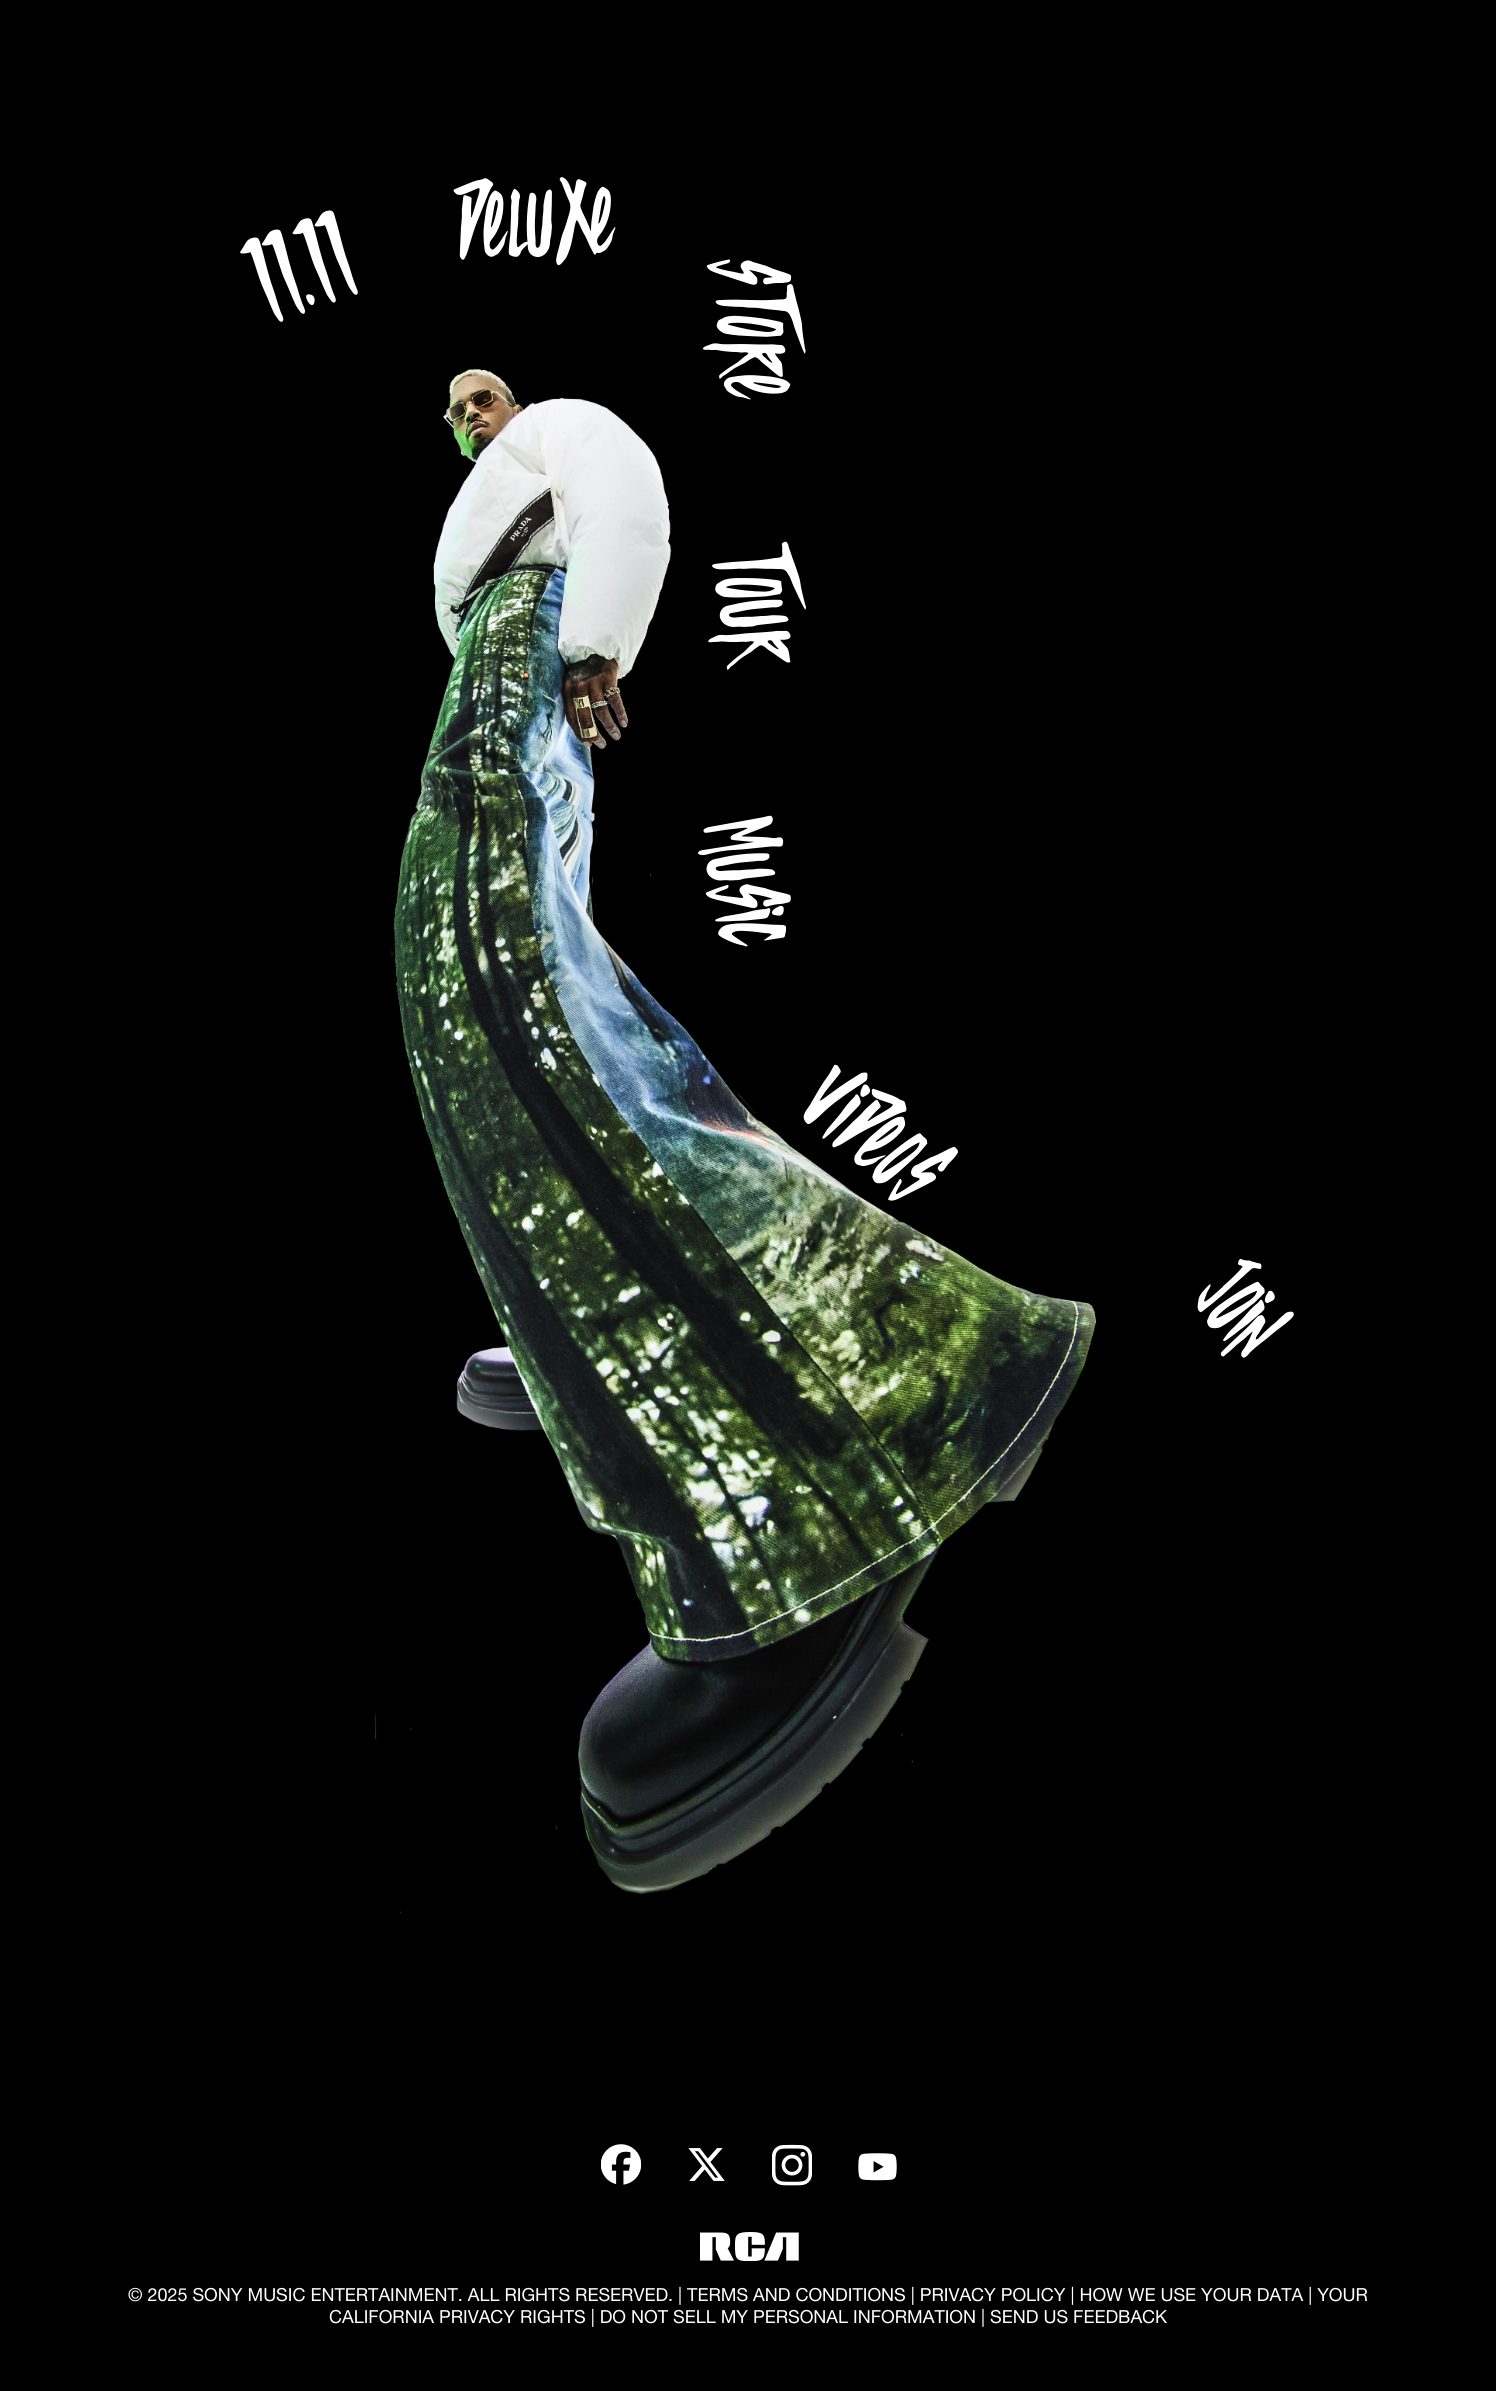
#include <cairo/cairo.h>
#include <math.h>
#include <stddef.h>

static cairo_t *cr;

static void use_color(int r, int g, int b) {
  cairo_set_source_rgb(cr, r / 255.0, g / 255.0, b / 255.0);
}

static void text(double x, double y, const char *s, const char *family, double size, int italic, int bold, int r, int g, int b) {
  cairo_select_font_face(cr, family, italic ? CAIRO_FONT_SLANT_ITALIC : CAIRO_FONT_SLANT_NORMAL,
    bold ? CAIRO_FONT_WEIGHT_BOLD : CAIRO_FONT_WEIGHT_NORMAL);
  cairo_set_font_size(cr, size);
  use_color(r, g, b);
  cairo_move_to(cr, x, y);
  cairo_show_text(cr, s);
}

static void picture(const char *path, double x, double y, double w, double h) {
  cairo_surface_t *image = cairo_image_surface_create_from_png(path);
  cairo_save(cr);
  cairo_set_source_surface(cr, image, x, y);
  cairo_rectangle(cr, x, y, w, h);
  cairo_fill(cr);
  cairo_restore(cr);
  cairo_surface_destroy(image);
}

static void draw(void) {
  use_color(0, 0, 0);
  cairo_paint(cr);
  picture("img_01.png", 375, 369, 722, 1544);
  picture("img_02.png", 601, 2144, 40, 41);
  picture("img_03.png", 688, 2148, 37, 33);
  picture("img_04.png", 772, 2144, 40, 42);
  picture("img_05.png", 858, 2153, 39, 28);
  picture("img_06.png", 700, 2232, 99, 29);
  cairo_save(cr);
  cairo_translate(cr, 264, 318);
  cairo_rotate(cr, -20 * M_PI / 180);
  text(0, 0, "11.11", "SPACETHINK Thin", 101, 0, 0, 255, 255, 255);
  cairo_restore(cr);
  cairo_save(cr);
  cairo_translate(cr, 456, 259);
  cairo_rotate(cr, -2 * M_PI / 180);
  text(0, 0, "DeluXe", "SPACETHINK Thin", 101, 0, 0, 255, 255, 255);
  cairo_restore(cr);
  cairo_save(cr);
  cairo_translate(cr, 712, 261);
  cairo_rotate(cr, 85 * M_PI / 180);
  text(0, 0, "STore", "SPACETHINK Thin", 101, 0, 0, 255, 255, 255);
  cairo_restore(cr);
  cairo_save(cr);
  cairo_translate(cr, 710, 555);
  cairo_rotate(cr, 80 * M_PI / 180);
  text(0, 0, "Tour", "SPACETHINK Thin", 101, 0, 0, 255, 255, 255);
  cairo_restore(cr);
  cairo_save(cr);
  cairo_translate(cr, 700, 828);
  cairo_rotate(cr, 80 * M_PI / 180);
  text(0, 0, "MuSic", "SPACETHINK Thin", 101, 0, 0, 255, 255, 255);
  cairo_restore(cr);
  cairo_save(cr);
  cairo_translate(cr, 794, 1113);
  cairo_rotate(cr, 40 * M_PI / 180);
  text(0, 0, "ViDeoS", "SPACETHINK Thin", 101, 0, 0, 255, 255, 255);
  cairo_restore(cr);
  cairo_save(cr);
  cairo_translate(cr, 1189, 1305);
  cairo_rotate(cr, 45 * M_PI / 180);
  text(0, 0, "Join", "SPACETHINK Thin", 101, 0, 0, 255, 255, 255);
  cairo_restore(cr);
  text(128, 2301, "© 2025 SONY MUSIC ENTERTAINMENT. ALL RIGHTS RESERVED. | TERMS AND CONDITIONS | PRIVACY POLICY | HOW WE USE YOUR DATA | YOUR", "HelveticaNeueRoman", 18, 0, 0, 255, 255, 255);
  text(329, 2323, "CALIFORNIA PRIVACY RIGHTS | DO NOT SELL MY PERSONAL INFORMATION | SEND US FEEDBACK", "HelveticaNeueRoman", 18, 0, 0, 255, 255, 255);
}

int main(void) {
  cairo_surface_t *surface = cairo_image_surface_create(CAIRO_FORMAT_RGB24, 1496, 2391);
  cr = cairo_create(surface);
  cairo_font_options_t *options = cairo_font_options_create();
  cairo_font_options_set_hint_metrics(options, CAIRO_HINT_METRICS_OFF);
  cairo_font_options_set_hint_style(options, CAIRO_HINT_STYLE_NONE);
  cairo_set_font_options(cr, options);
  cairo_set_miter_limit(cr, 4);
  draw();
  cairo_surface_write_to_png(surface, "out.png");
  cairo_font_options_destroy(options);
  cairo_destroy(cr);
  cairo_surface_destroy(surface);
  return 0;
}
